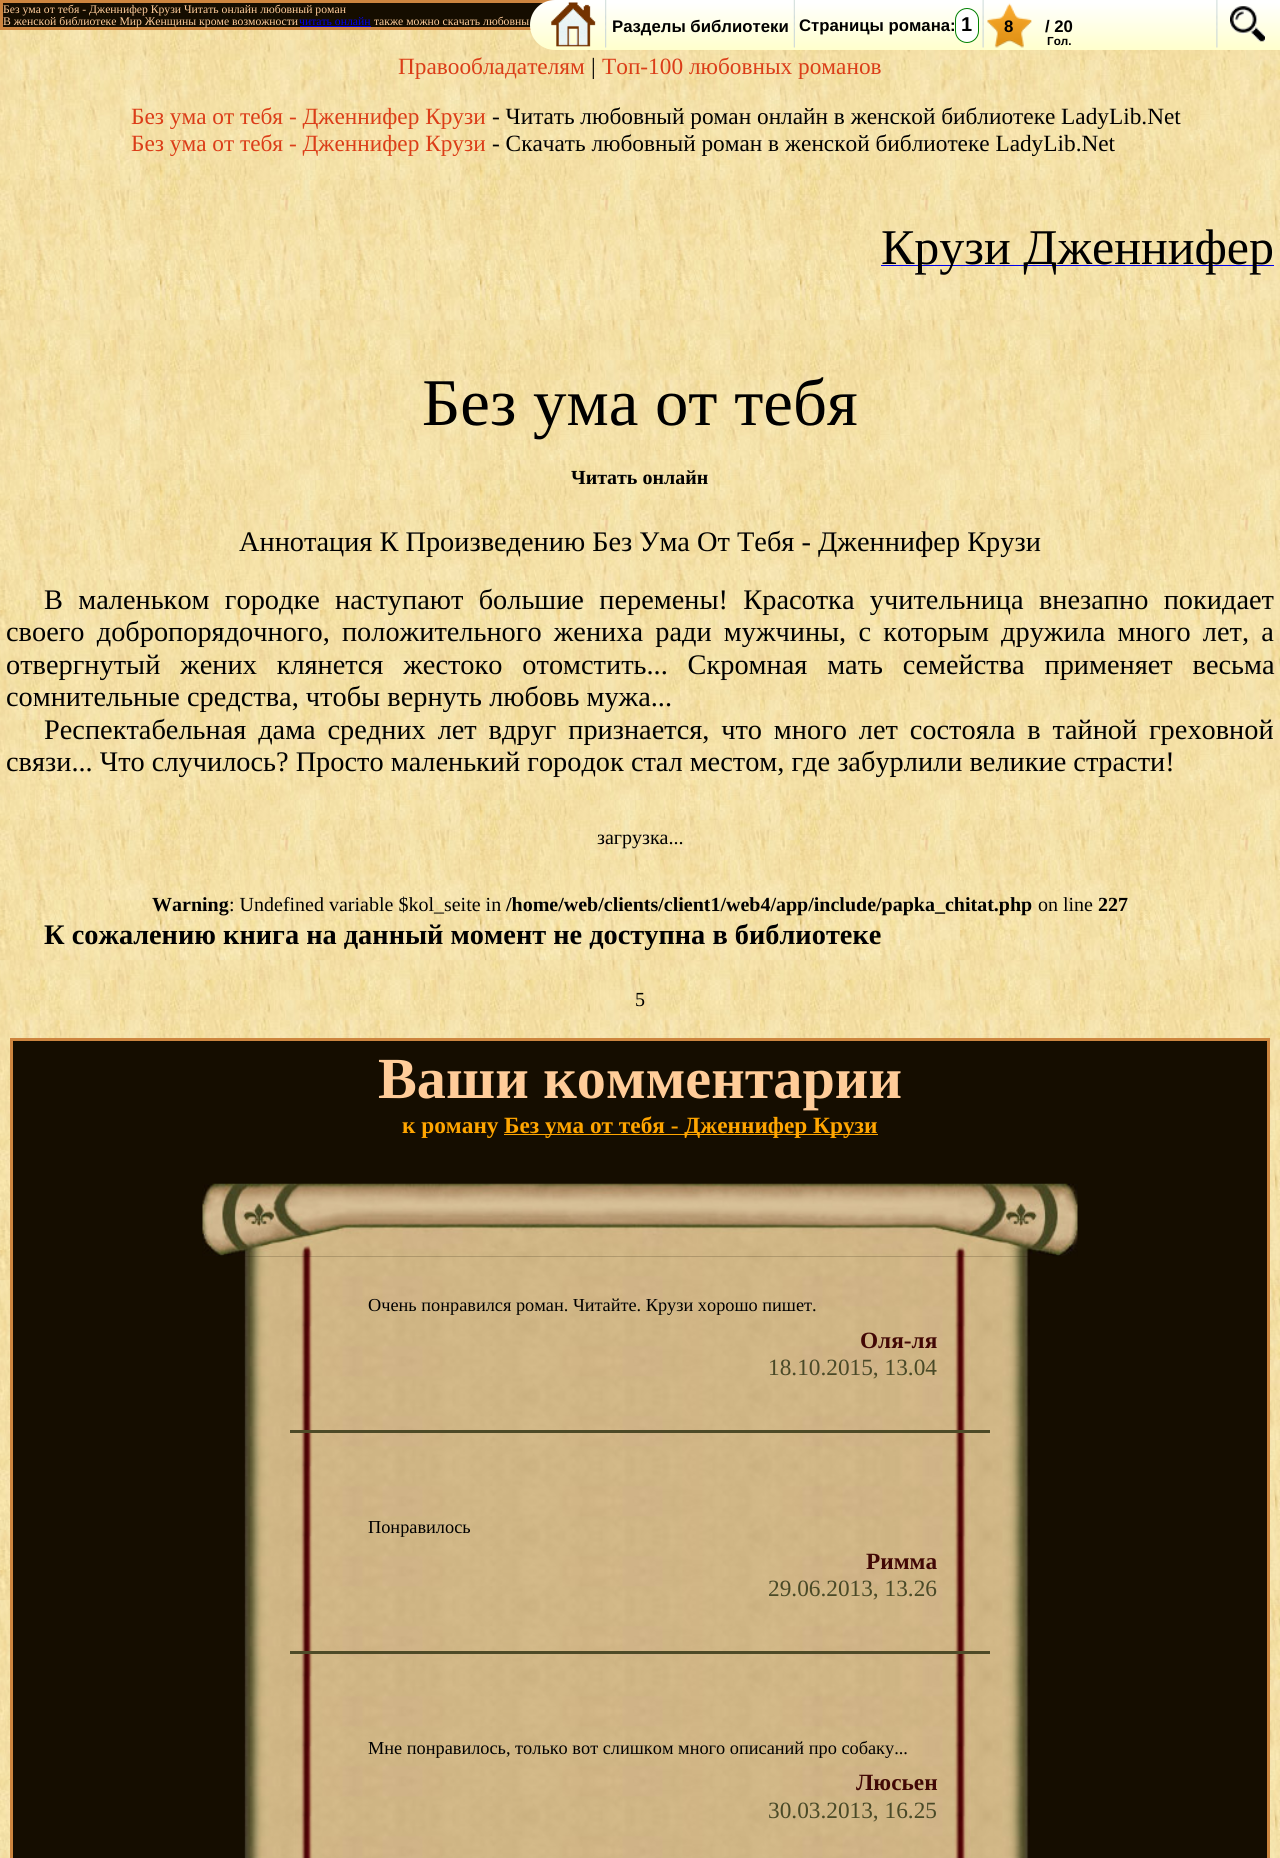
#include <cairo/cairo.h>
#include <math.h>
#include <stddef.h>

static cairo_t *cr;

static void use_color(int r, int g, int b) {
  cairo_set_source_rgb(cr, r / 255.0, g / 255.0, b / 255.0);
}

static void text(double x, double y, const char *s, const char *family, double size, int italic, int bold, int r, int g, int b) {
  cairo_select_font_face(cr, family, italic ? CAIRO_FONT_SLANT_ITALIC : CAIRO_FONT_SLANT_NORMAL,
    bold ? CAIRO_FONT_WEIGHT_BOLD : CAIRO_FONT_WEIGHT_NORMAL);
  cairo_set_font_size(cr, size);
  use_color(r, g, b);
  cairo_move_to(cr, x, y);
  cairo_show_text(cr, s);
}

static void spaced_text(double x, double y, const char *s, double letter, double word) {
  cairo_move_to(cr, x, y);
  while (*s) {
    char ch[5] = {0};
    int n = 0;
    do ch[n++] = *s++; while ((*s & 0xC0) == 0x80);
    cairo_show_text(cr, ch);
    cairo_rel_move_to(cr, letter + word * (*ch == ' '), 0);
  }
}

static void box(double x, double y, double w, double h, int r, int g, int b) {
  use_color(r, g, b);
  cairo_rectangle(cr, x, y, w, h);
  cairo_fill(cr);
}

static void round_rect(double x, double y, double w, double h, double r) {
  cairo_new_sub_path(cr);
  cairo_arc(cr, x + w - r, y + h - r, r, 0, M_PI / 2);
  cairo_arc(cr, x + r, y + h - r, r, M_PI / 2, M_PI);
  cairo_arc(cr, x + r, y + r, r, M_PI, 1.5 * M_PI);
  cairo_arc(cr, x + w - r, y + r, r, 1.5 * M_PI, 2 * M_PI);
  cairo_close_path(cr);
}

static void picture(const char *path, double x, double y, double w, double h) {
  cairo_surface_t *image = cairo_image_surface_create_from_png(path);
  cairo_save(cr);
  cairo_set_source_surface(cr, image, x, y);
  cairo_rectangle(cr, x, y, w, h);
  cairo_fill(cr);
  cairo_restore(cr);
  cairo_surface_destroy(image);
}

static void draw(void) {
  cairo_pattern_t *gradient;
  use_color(255, 255, 255);
  cairo_paint(cr);
  picture("img_01.png", 0, 30, 1280, 1828);
  box(3, 3, 540, 24, 21, 13, 0);
  cairo_rectangle(cr, 1.5, 1.5, 1277, 27);
  use_color(205, 133, 63);
  cairo_set_line_width(cr, 3);
  cairo_stroke(cr);
  box(300, 26, 71, 1, 0, 0, 238);
  gradient = cairo_pattern_create_linear(905, 0, 905, 50);
  cairo_pattern_add_color_stop_rgba(gradient, 0.05, 1, 1, 1, 1);
  cairo_pattern_add_color_stop_rgba(gradient, 1, 1, 1, 0.8, 1);
  cairo_set_source(cr, gradient);
  cairo_pattern_destroy(gradient);
  cairo_new_path(cr);
  cairo_move_to(cr, 555, 0);
  cairo_line_to(cr, 1280, 0);
  cairo_line_to(cr, 1280, 50);
  cairo_line_to(cr, 555, 50);
  cairo_curve_to(cr, 541, 50, 530, 39, 530, 25);
  cairo_curve_to(cr, 530, 11, 541, 0, 555, 0);
  cairo_close_path(cr);
  cairo_fill(cr);
  picture("img_02.png", 551, 2, 45, 45);
  picture("img_03.png", 605, 0, 2, 48);
  picture("img_04.png", 793, 0, 2, 48);
  use_color(255, 255, 255);
  round_rect(955.5, 8.5, 23, 34, 11.5);
  cairo_fill_preserve(cr);
  use_color(0, 128, 0);
  cairo_set_line_width(cr, 1);
  cairo_stroke(cr);
  picture("img_05.png", 982, 0, 2, 48);
  picture("img_06.png", 987, 3, 45, 45);
  picture("img_07.png", 1216, 0, 2, 48);
  picture("img_08.png", 1230, 6, 35, 36);
  use_color(21, 13, 0);
  cairo_rectangle(cr, 11.5, 1039.5, 1257, 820);
  cairo_fill_preserve(cr);
  use_color(205, 133, 63);
  cairo_set_line_width(cr, 3);
  cairo_stroke(cr);
  box(504, 1134, 374, 1, 255, 165, 0);
  picture("img_09.png", 202, 1183, 876, 74);
  picture("img_10.png", 244, 1256, 786, 602);
  box(290, 1430, 700, 3, 77, 74, 39);
  box(290, 1651, 700, 3, 77, 74, 39);
  box(881, 265, 393, 1, 0, 0, 238);
  text(3, 13, "Без ума от тебя - Дженнифер Крузи Читать онлайн любовный роман", "Liberation Serif", 11.7, 0, 0, 255, 204, 153);
  text(3, 25, "В женской библиотеке Мир Женщины кроме возможности", "Liberation Serif", 11.7, 0, 0, 255, 204, 153);
  text(299, 25, "читать онлайн", "Liberation Serif", 11.7, 0, 0, 0, 0, 238);
  text(374, 25, "также можно скачать любовны", "Liberation Serif", 11.7, 0, 0, 255, 204, 153);
  text(612, 32, "Разделы библиотеки", "Liberation Sans", 16.75, 0, 1, 0, 0, 0);
  text(799, 31, "Страницы романа:", "Liberation Sans", 16.75, 0, 1, 0, 0, 0);
  text(961, 31, "1", "Liberation Sans", 20, 0, 1, 0, 0, 0);
  text(1004, 32, "8", "Liberation Sans", 16.75, 0, 1, 0, 0, 0);
  text(1045, 32, "/ 20", "Liberation Sans", 16.75, 0, 1, 0, 0, 0);
  text(1047, 45, "Гол.", "Liberation Sans", 11.7, 0, 1, 0, 0, 0);
  text(571, 484, "Читать онлайн", "Liberation Serif", 20, 0, 1, 0, 0, 0);
  text(239, 551, "Аннотация К Произведению Без Ума От Тебя - Дженнифер Крузи", "Liberation Serif", 28.35, 0, 0, 0, 0, 0);
  spaced_text(44, 609, "В маленьком городке наступают большие перемены! Красотка учительница внезапно покидает", 0, 8.25);
  spaced_text(6, 641, "своего добропорядочного, положительного жениха ради мужчины, с которым дружила много лет, а", 0, 5.1);
  spaced_text(6, 674, "отвергнутый жених клянется жестоко отомстить... Скромная мать семейства применяет весьма", 0, 12.75);
  text(6, 706, "сомнительные средства, чтобы вернуть любовь мужа...", "Liberation Serif", 28.35, 0, 0, 0, 0, 0);
  spaced_text(44, 739, "Респектабельная дама средних лет вдруг признается, что много лет состояла в тайной греховной", 0, 4.75);
  text(6, 771, "связи... Что случилось? Просто маленький городок стал местом, где забурлили великие страсти!", "Liberation Serif", 28.35, 0, 0, 0, 0, 0);
  text(597, 844, "загрузка...", "Liberation Serif", 20, 0, 0, 0, 0, 0);
  text(152, 911, "Warning", "Liberation Serif", 20, 0, 1, 0, 0, 0);
  text(229, 911, ": Undefined variable $kol_seite in", "Liberation Serif", 20, 0, 0, 0, 0, 0);
  text(506, 911, "/home/web/clients/client1/web4/app/include/papka_chitat.php", "Liberation Serif", 20, 0, 1, 0, 0, 0);
  text(1038, 911, "on line", "Liberation Serif", 20, 0, 0, 0, 0, 0);
  text(1098, 911, "227", "Liberation Serif", 20, 0, 1, 0, 0, 0);
  text(44, 944, "К сожалению книга на данный момент не доступна в библиотеке", "Liberation Serif", 28.35, 0, 1, 0, 0, 0);
  text(635, 1006, "5", "Liberation Serif", 20, 0, 0, 0, 0, 0);
  text(378, 1098, "Ваши комментарии", "Liberation Serif", 58.25, 0, 1, 255, 204, 153);
  text(402, 1133, "к роману", "Liberation Serif", 23.3, 0, 1, 255, 165, 0);
  text(504, 1133, "Без ума от тебя - Дженнифер Крузи", "Liberation Serif", 23.3, 0, 1, 255, 165, 0);
  text(368, 1311, "Очень понравился роман. Читайте. Крузи хорошо пишет.", "Liberation Serif", 18.3, 0, 0, 0, 0, 0);
  text(860, 1348, "Оля-ля", "Liberation Serif", 23.3, 0, 1, 65, 7, 5);
  text(768, 1375, "18.10.2015, 13.04", "Liberation Serif", 23.3, 0, 0, 73, 73, 39);
  text(368, 1533, "Понравилось", "Liberation Serif", 18.3, 0, 0, 0, 0, 0);
  text(866, 1569, "Римма", "Liberation Serif", 23.3, 0, 1, 65, 7, 5);
  text(768, 1596, "29.06.2013, 13.26", "Liberation Serif", 23.3, 0, 0, 73, 73, 39);
  text(368, 1754, "Мне понравилось, только вот слишком много описаний про собаку...", "Liberation Serif", 18.3, 0, 0, 0, 0, 0);
  text(856, 1790, "Люсьен", "Liberation Serif", 23.3, 0, 1, 65, 7, 5);
  text(768, 1818, "30.03.2013, 16.25", "Liberation Serif", 23.3, 0, 0, 73, 73, 39);
  text(398, 74, "Правообладателям", "Liberation Serif", 23.3, 0, 0, 219, 61, 24);
  text(591, 74, "|", "Liberation Serif", 23.3, 0, 0, 0, 0, 0);
  text(602, 74, "Топ-100 любовных романов", "Liberation Serif", 23.3, 0, 0, 219, 61, 24);
  text(131, 124, "Без ума от тебя - Дженнифер Крузи", "Liberation Serif", 23.3, 0, 0, 219, 61, 24);
  text(492, 124, "- Читать любовный роман онлайн в женской библиотеке LadyLib.Net", "Liberation Serif", 23.3, 0, 0, 0, 0, 0);
  text(131, 151, "Без ума от тебя - Дженнифер Крузи", "Liberation Serif", 23.3, 0, 0, 219, 61, 24);
  text(492, 151, "- Скачать любовный роман в женской библиотеке LadyLib.Net", "Liberation Serif", 23.3, 0, 0, 0, 0, 0);
  text(881, 264, "Крузи Дженнифер", "Liberation Serif", 50, 0, 0, 0, 0, 0);
  text(422, 425, "Без ума от тебя", "Liberation Serif", 66.75, 0, 0, 0, 0, 0);
}

int main(void) {
  cairo_surface_t *surface = cairo_image_surface_create(CAIRO_FORMAT_RGB24, 1280, 1858);
  cr = cairo_create(surface);
  cairo_font_options_t *options = cairo_font_options_create();
  cairo_font_options_set_hint_metrics(options, CAIRO_HINT_METRICS_OFF);
  cairo_font_options_set_hint_style(options, CAIRO_HINT_STYLE_NONE);
  cairo_set_font_options(cr, options);
  cairo_set_miter_limit(cr, 4);
  draw();
  cairo_surface_write_to_png(surface, "out.png");
  cairo_font_options_destroy(options);
  cairo_destroy(cr);
  cairo_surface_destroy(surface);
  return 0;
}
